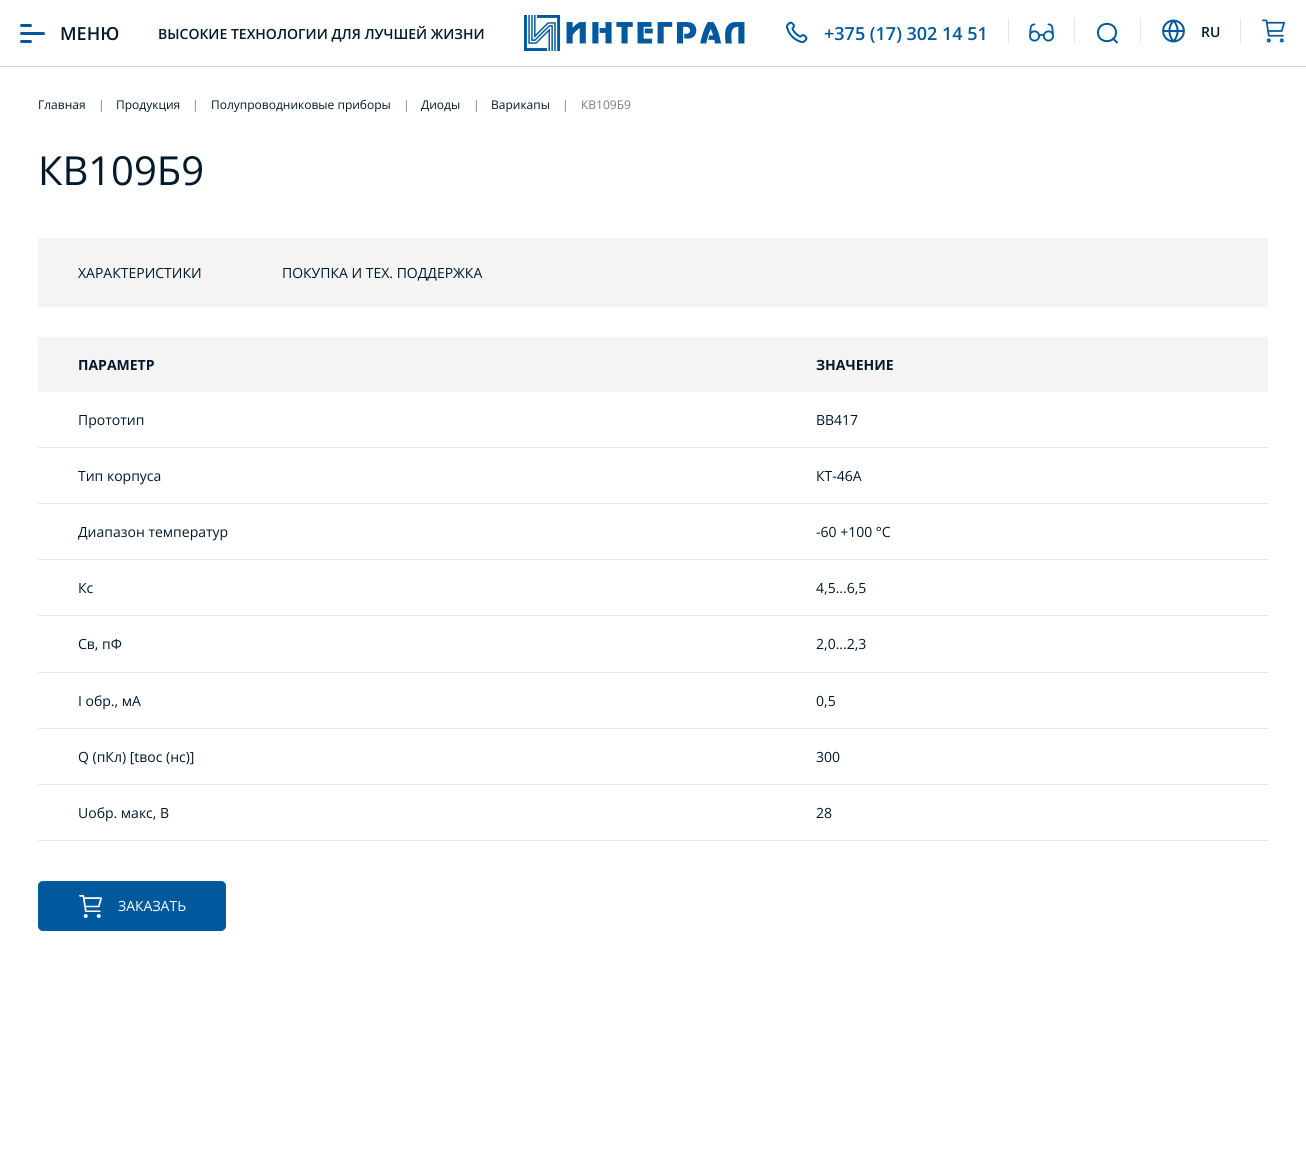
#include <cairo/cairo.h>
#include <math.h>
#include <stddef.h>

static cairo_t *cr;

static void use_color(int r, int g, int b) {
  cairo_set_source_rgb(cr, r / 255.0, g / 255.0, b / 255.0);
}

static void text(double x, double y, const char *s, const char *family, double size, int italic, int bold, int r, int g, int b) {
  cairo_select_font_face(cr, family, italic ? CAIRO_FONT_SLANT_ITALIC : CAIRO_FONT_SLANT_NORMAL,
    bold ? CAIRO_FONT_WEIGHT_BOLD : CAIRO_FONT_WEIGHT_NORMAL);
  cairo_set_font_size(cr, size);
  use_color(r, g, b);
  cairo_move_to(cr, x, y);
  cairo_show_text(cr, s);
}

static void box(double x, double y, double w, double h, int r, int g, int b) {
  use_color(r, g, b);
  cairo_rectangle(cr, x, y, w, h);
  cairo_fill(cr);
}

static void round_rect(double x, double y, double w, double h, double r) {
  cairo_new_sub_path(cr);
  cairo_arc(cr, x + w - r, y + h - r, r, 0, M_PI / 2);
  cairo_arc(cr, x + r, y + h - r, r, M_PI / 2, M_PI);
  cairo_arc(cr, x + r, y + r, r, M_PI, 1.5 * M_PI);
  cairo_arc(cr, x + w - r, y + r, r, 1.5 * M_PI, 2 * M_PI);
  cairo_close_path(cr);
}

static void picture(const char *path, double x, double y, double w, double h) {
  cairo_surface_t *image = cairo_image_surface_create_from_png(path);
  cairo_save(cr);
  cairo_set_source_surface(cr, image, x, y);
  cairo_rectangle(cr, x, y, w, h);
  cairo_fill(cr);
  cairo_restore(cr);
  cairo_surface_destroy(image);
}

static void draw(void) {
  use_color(255, 255, 255);
  cairo_paint(cr);
  box(0, 66, 1306, 1, 210, 211, 214);
  use_color(0, 89, 157);
  round_rect(20, 24, 12, 3, 1.5);
  cairo_fill(cr);
  round_rect(20, 32, 25, 3, 1.5);
  cairo_fill(cr);
  round_rect(20, 40, 12, 3, 1.5);
  cairo_fill(cr);
  picture("img_01.png", 524, 15, 221, 36);
  picture("img_02.png", 786, 21, 22, 22);
  box(1008, 18, 1, 25, 230, 231, 232);
  picture("img_03.png", 1029, 23, 25, 19);
  box(1074, 18, 1, 25, 230, 231, 232);
  cairo_new_path(cr);
  cairo_move_to(cr, 1117, 42.5);
  cairo_line_to(cr, 1113, 38.5);
  cairo_move_to(cr, 1116, 32.5);
  cairo_curve_to(cr, 1116, 44, 1098, 44, 1098, 32.5);
  cairo_curve_to(cr, 1098, 21, 1116, 21, 1116, 32.5);
  cairo_close_path(cr);
  use_color(0, 89, 157);
  cairo_set_line_cap(cr, CAIRO_LINE_CAP_ROUND);
  cairo_set_line_join(cr, CAIRO_LINE_JOIN_ROUND);
  cairo_stroke(cr);
  box(1140, 18, 1, 25, 230, 231, 232);
  picture("img_04.png", 1162, 19, 23, 24);
  box(1240, 18, 1, 25, 230, 231, 232);
  picture("img_05.png", 1262, 19, 23, 24);
  box(38, 238, 1230, 69, 244, 244, 244);
  box(38, 337, 1230, 55, 244, 244, 244);
  box(38, 447, 1231, 1, 230, 231, 232);
  box(38, 503, 1231, 1, 230, 231, 232);
  box(38, 559, 1231, 1, 230, 231, 232);
  box(38, 615, 1231, 1, 230, 231, 232);
  box(38, 672, 1231, 1, 230, 231, 232);
  box(38, 728, 1231, 1, 230, 231, 232);
  box(38, 784, 1231, 1, 230, 231, 232);
  box(38, 840, 1231, 1, 230, 231, 232);
  use_color(0, 89, 157);
  round_rect(38, 881, 188, 50, 5);
  cairo_fill(cr);
  picture("img_06.png", 79, 895, 23, 23);
  text(60, 40, "МЕНЮ", "Open Sans SemiBold", 18, 0, 0, 0, 25, 44);
  text(158, 39, "ВЫСОКИЕ ТЕХНОЛОГИИ ДЛЯ ЛУЧШЕЙ ЖИЗНИ", "Open Sans SemiBold", 14, 0, 0, 0, 25, 44);
  text(824, 40, "+375 (17) 302 14 51", "Open Sans SemiBold", 18, 0, 0, 0, 89, 157);
  text(1201, 37, "RU", "Open Sans SemiBold", 14, 0, 0, 0, 25, 44);
  text(38, 109, "Главная", "Open Sans", 12, 0, 0, 0, 25, 44);
  text(98, 109, "|", "Open Sans", 12, 0, 0, 123, 123, 123);
  text(116, 109, "Продукция", "Open Sans", 12, 0, 0, 0, 25, 44);
  text(192, 109, "|", "Open Sans", 12, 0, 0, 123, 123, 123);
  text(211, 109, "Полупроводниковые приборы", "Open Sans", 12, 0, 0, 0, 25, 44);
  text(403, 109, "|", "Open Sans", 12, 0, 0, 123, 123, 123);
  text(421, 109, "Диоды", "Open Sans", 12, 0, 0, 0, 25, 44);
  text(473, 109, "|", "Open Sans", 12, 0, 0, 123, 123, 123);
  text(491, 109, "Варикапы", "Open Sans", 12, 0, 0, 0, 25, 44);
  text(562, 109, "|", "Open Sans", 12, 0, 0, 123, 123, 123);
  text(581, 109, "КВ109Б9", "Open Sans", 12, 0, 0, 123, 123, 123);
  text(38, 185, "КВ109Б9", "Open Sans", 40, 0, 0, 0, 25, 44);
  text(78, 278, "ХАРАКТЕРИСТИКИ", "Open Sans", 14, 0, 0, 0, 25, 44);
  text(282, 278, "ПОКУПКА И ТЕХ. ПОДДЕРЖКА", "Open Sans", 14, 0, 0, 0, 25, 44);
  text(78, 370, "ПАРАМЕТР", "Open Sans", 14, 0, 1, 0, 25, 44);
  text(816, 370, "ЗНАЧЕНИЕ", "Open Sans", 14, 0, 1, 0, 25, 44);
  text(78, 425, "Прототип", "Open Sans", 14, 0, 0, 0, 25, 44);
  text(816, 425, "ВВ417", "Open Sans", 14, 0, 0, 0, 25, 44);
  text(78, 481, "Тип корпуса", "Open Sans", 14, 0, 0, 0, 25, 44);
  text(816, 481, "КТ-46A", "Open Sans", 14, 0, 0, 0, 25, 44);
  text(78, 537, "Диапазон температур", "Open Sans", 14, 0, 0, 0, 25, 44);
  text(816, 537, "-60 +100 °С", "Open Sans", 14, 0, 0, 0, 25, 44);
  text(78, 593, "Кс", "Open Sans", 14, 0, 0, 0, 25, 44);
  text(816, 593, "4,5...6,5", "Open Sans", 14, 0, 0, 0, 25, 44);
  text(78, 649, "Cв, пФ", "Open Sans", 14, 0, 0, 0, 25, 44);
  text(816, 649, "2,0...2,3", "Open Sans", 14, 0, 0, 0, 25, 44);
  text(78, 706, "I обр., мА", "Open Sans", 14, 0, 0, 0, 25, 44);
  text(816, 706, "0,5", "Open Sans", 14, 0, 0, 0, 25, 44);
  text(78, 762, "Q (пКл) [tвос (нс)]", "Open Sans", 14, 0, 0, 0, 25, 44);
  text(816, 762, "300", "Open Sans", 14, 0, 0, 0, 25, 44);
  text(78, 818, "Uобр. макс, В", "Open Sans", 14, 0, 0, 0, 25, 44);
  text(816, 818, "28", "Open Sans", 14, 0, 0, 0, 25, 44);
  text(118, 911, "ЗАКАЗАТЬ", "Open Sans", 14, 0, 0, 255, 255, 255);
}

int main(void) {
  cairo_surface_t *surface = cairo_image_surface_create(CAIRO_FORMAT_RGB24, 1306, 1149);
  cr = cairo_create(surface);
  cairo_font_options_t *options = cairo_font_options_create();
  cairo_font_options_set_hint_metrics(options, CAIRO_HINT_METRICS_OFF);
  cairo_font_options_set_hint_style(options, CAIRO_HINT_STYLE_NONE);
  cairo_set_font_options(cr, options);
  cairo_set_miter_limit(cr, 4);
  draw();
  cairo_surface_write_to_png(surface, "out.png");
  cairo_font_options_destroy(options);
  cairo_destroy(cr);
  cairo_surface_destroy(surface);
  return 0;
}
